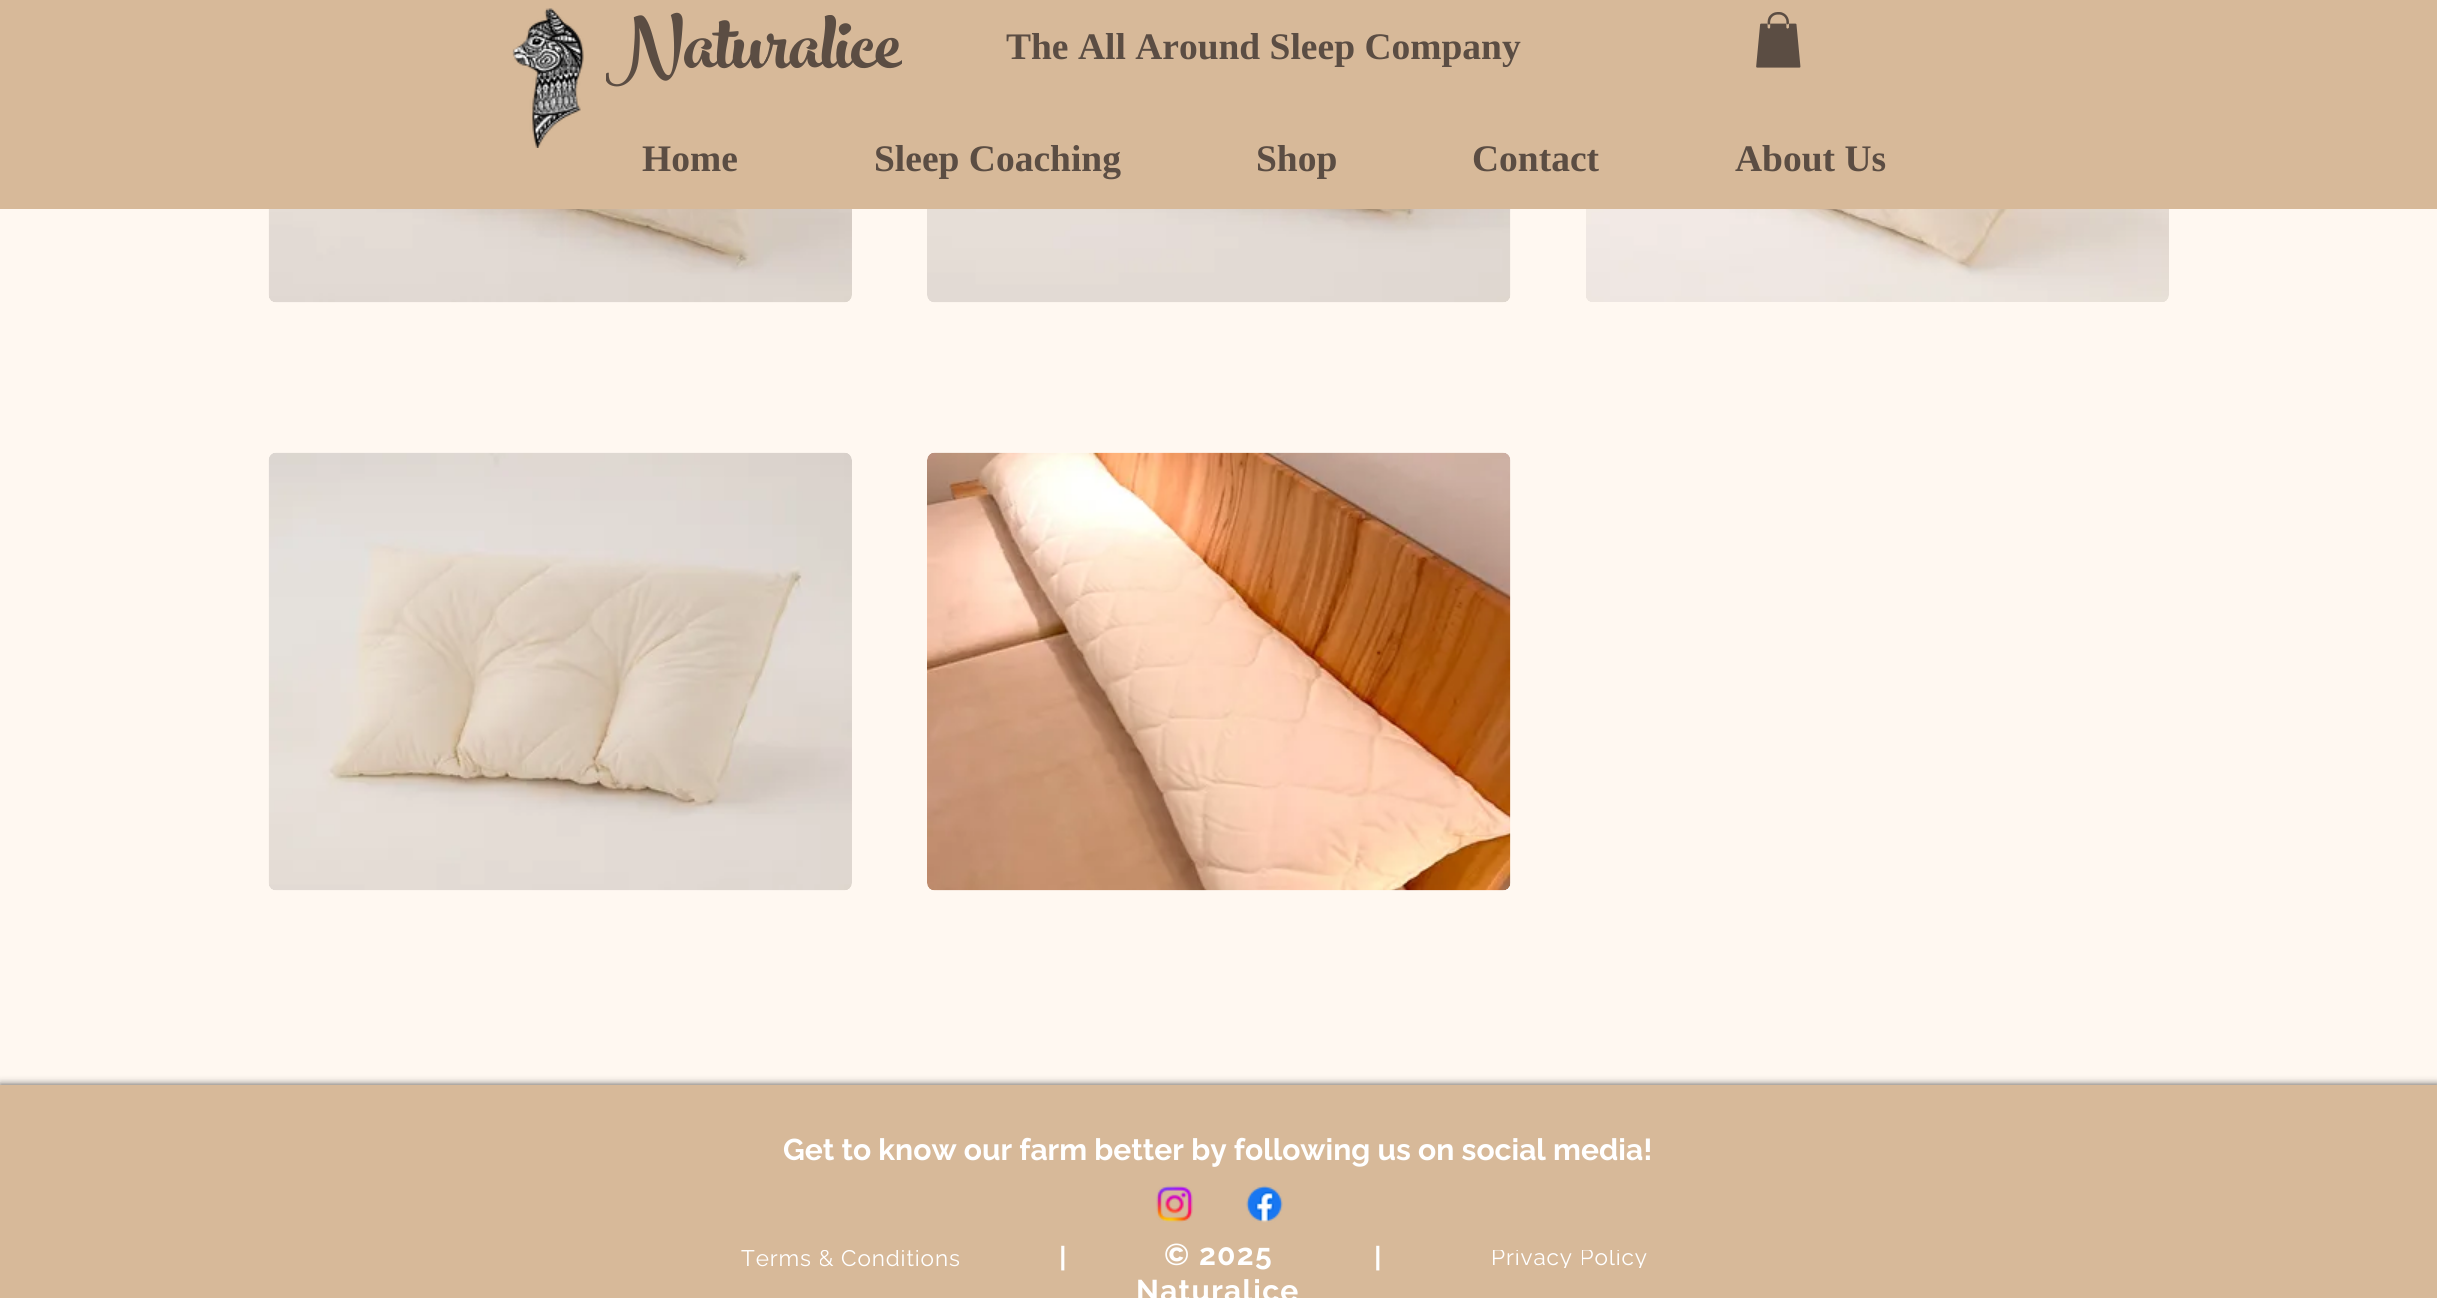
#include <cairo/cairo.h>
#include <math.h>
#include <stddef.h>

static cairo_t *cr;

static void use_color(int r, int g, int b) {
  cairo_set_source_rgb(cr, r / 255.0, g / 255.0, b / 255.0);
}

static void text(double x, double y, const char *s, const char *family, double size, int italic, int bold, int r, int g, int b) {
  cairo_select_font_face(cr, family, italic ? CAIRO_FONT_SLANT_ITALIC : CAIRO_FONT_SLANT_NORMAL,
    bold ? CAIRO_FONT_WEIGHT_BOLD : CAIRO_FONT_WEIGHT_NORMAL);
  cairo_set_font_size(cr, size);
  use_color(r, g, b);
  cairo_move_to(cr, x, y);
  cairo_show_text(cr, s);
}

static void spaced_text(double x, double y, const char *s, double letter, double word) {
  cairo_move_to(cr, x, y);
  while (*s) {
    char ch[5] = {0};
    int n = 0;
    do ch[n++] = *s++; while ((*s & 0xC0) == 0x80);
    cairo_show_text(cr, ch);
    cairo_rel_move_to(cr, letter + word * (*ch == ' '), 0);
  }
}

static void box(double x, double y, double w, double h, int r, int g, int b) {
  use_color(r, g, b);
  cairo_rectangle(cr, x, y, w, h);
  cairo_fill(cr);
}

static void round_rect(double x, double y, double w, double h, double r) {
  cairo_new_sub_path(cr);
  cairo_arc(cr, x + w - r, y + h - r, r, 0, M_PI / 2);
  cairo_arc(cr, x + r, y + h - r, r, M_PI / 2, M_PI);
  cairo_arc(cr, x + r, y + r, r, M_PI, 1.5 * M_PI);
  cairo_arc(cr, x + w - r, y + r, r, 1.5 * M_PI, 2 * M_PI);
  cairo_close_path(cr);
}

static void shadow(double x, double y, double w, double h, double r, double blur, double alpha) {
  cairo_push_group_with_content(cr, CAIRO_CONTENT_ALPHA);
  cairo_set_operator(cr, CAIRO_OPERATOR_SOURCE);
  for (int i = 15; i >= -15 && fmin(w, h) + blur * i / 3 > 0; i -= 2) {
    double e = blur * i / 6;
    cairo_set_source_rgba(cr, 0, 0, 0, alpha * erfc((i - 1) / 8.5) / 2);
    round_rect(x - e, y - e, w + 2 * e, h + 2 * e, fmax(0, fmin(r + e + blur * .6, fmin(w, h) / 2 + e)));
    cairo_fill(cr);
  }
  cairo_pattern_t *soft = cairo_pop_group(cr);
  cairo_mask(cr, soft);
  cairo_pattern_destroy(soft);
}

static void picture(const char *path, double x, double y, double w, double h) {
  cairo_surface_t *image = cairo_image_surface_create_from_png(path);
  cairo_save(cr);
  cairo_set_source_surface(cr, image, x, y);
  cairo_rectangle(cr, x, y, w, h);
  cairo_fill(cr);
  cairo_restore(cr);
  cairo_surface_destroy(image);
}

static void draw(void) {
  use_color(255, 248, 241);
  cairo_paint(cr);
  box(0, 0, 2437, 209, 215, 185, 153);
  picture("img_01.png", 512, 8, 72, 140);
  picture("img_02.png", 1756, 12, 45, 56);
  picture("img_03.png", 268, 209, 584, 94);
  picture("img_04.png", 927, 209, 584, 94);
  picture("img_05.png", 1586, 209, 583, 93);
  picture("img_06.png", 268, 452, 584, 439);
  picture("img_07.png", 927, 452, 584, 439);
  use_color(2, 2, 2);
  shadow(0, 1085, 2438, 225, 0, 4, 0.7);
  box(0, 1085, 2437, 213, 215, 185, 153);
  picture("img_08.png", 1156, 1185, 37, 38);
  picture("img_09.png", 1246, 1185, 37, 38);
  cairo_save(cr);
  cairo_rectangle(cr, 606, 12, 296, 87);
  cairo_clip(cr);
  text(605, 68, "Naturalice", "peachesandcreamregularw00", 112.5, 0, 0, 91, 77, 67);
  cairo_restore(cr);
  text(1006, 59, "The All Around Sleep Company", "Liberation Serif", 37.5, 0, 1, 91, 77, 67);
  text(642, 171, "Home", "Liberation Serif", 37.5, 0, 1, 91, 77, 67);
  text(874, 171, "Sleep Coaching", "Liberation Serif", 37.5, 0, 1, 91, 77, 67);
  text(1256, 171, "Shop", "Liberation Serif", 37.5, 0, 1, 91, 77, 67);
  text(1472, 171, "Contact", "Liberation Serif", 37.5, 0, 1, 91, 77, 67);
  text(1735, 171, "About Us", "Liberation Serif", 37.5, 0, 1, 91, 77, 67);
  text(783, 1160, "Get to know our farm better by following us on social media!", "Raleway", 30, 0, 1, 255, 255, 255);
  cairo_save(cr);
  cairo_rectangle(cr, 741, 1250, 221, 18);
  cairo_clip(cr);
  cairo_select_font_face(cr, "Raleway", CAIRO_FONT_SLANT_NORMAL, CAIRO_FONT_WEIGHT_NORMAL);
  cairo_set_font_size(cr, 22.5);
  spaced_text(741, 1266, "Terms & Conditions", 0.9, 0);
  cairo_restore(cr);
  text(1059, 1268, "|", "Basic", 30, 0, 0, 255, 255, 255);
  cairo_select_font_face(cr, "Raleway", CAIRO_FONT_SLANT_NORMAL, CAIRO_FONT_WEIGHT_BOLD);
  spaced_text(1164, 1265, "© 2025", 1.25, 0);
  spaced_text(1136, 1301, "Naturalice", 1.25, 0);
  text(1374, 1268, "|", "Basic", 30, 0, 0, 255, 255, 255);
  cairo_save(cr);
  cairo_rectangle(cr, 1491, 1250, 158, 18);
  cairo_clip(cr);
  cairo_select_font_face(cr, "Raleway", CAIRO_FONT_SLANT_NORMAL, CAIRO_FONT_WEIGHT_NORMAL);
  cairo_set_font_size(cr, 22.5);
  spaced_text(1491, 1265, "Privacy Policy", 0.9, 0);
  cairo_restore(cr);
}

int main(void) {
  cairo_surface_t *surface = cairo_image_surface_create(CAIRO_FORMAT_RGB24, 2437, 1298);
  cr = cairo_create(surface);
  cairo_font_options_t *options = cairo_font_options_create();
  cairo_font_options_set_hint_metrics(options, CAIRO_HINT_METRICS_OFF);
  cairo_font_options_set_hint_style(options, CAIRO_HINT_STYLE_NONE);
  cairo_set_font_options(cr, options);
  cairo_set_miter_limit(cr, 4);
  draw();
  cairo_surface_write_to_png(surface, "out.png");
  cairo_font_options_destroy(options);
  cairo_destroy(cr);
  cairo_surface_destroy(surface);
  return 0;
}
